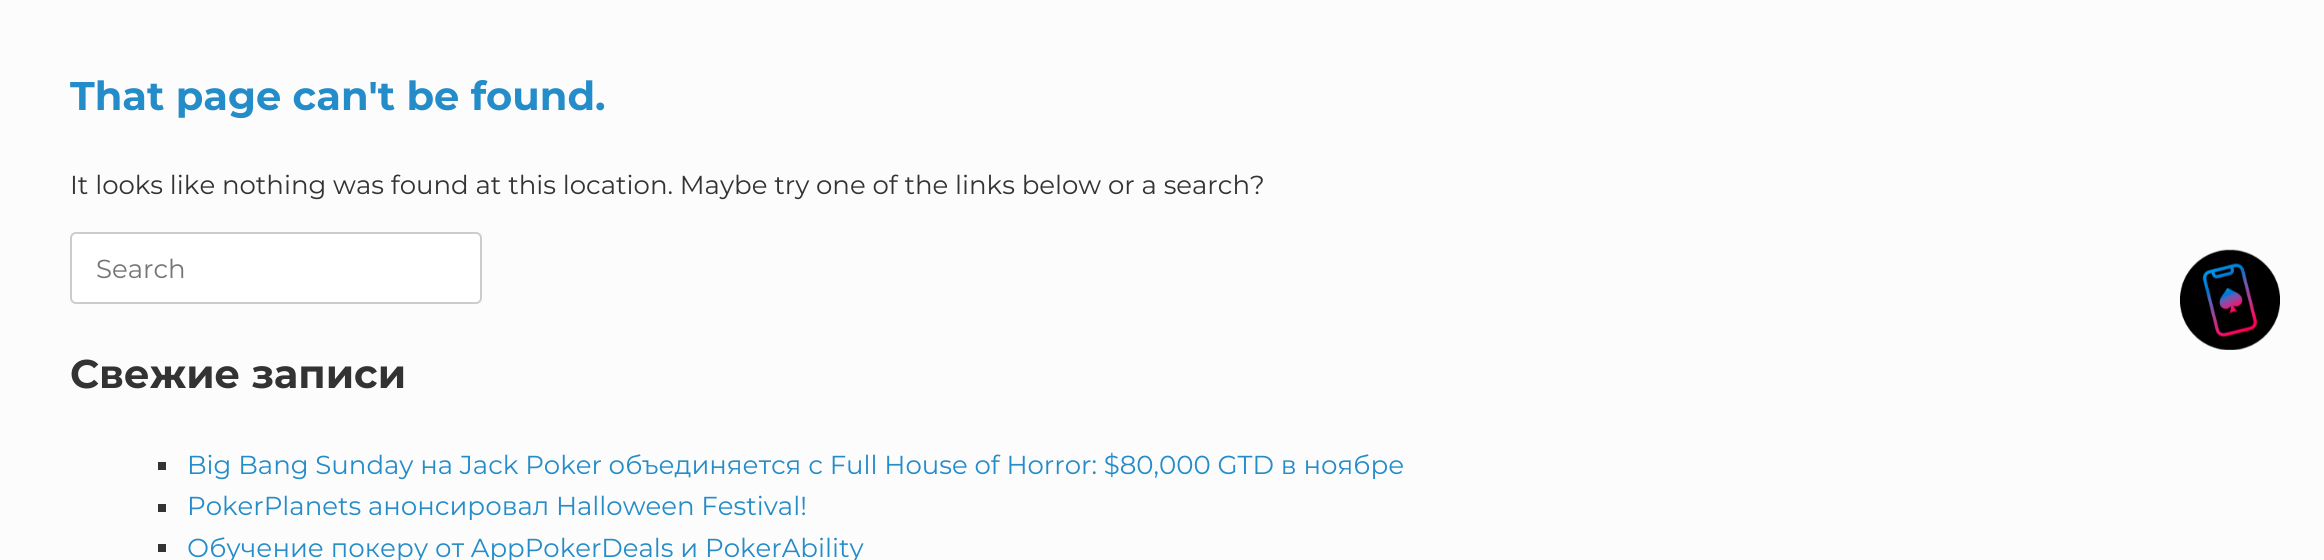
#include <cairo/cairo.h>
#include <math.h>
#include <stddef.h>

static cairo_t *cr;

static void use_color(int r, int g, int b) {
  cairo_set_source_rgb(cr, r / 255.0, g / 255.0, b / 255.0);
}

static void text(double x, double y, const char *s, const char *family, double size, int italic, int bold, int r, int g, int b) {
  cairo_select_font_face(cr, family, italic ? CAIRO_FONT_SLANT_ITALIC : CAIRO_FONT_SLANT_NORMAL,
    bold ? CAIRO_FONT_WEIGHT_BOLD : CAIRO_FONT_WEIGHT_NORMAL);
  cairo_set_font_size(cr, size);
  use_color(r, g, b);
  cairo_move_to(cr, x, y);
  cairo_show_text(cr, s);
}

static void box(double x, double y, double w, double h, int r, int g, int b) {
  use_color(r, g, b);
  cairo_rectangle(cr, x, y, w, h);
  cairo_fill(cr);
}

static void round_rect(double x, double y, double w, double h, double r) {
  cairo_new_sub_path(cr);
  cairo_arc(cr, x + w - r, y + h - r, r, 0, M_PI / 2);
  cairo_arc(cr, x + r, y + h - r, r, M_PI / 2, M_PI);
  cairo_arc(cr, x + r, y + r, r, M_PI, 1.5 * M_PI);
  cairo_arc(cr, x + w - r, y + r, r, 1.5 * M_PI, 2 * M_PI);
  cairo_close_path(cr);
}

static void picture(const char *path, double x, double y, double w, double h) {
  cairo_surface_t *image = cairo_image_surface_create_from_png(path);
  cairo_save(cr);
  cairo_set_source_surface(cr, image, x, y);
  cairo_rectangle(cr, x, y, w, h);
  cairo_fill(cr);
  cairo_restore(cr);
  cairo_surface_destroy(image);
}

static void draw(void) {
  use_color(252, 252, 252);
  cairo_paint(cr);
  use_color(255, 255, 255);
  round_rect(71, 233, 410, 70, 5);
  cairo_fill_preserve(cr);
  use_color(204, 204, 204);
  cairo_stroke(cr);
  box(158, 462, 8, 8, 51, 51, 51);
  box(158, 504, 8, 8, 51, 51, 51);
  box(158, 544, 8, 8, 51, 51, 51);
  picture("img_01.png", 2180, 249, 100, 101);
  text(70, 110, "That page can't be found.", "Montserrat", 40, 0, 1, 36, 140, 200);
  text(70, 194, "It looks like nothing was found at this location. Maybe try one of the links below or a search?", "Montserrat", 26, 0, 0, 51, 51, 51);
  text(96, 278, "Search", "Montserrat", 26, 0, 0, 117, 117, 117);
  text(70, 388, "Свежие записи", "Montserrat", 40, 0, 1, 51, 51, 51);
  text(187, 474, "Big Bang Sunday на Jack Poker объединяется с Full House of Horror: $80,000 GTD в ноябре", "Montserrat", 26, 0, 0, 36, 140, 200);
  text(187, 515, "PokerPlanets анонсировал Halloween Festival!", "Montserrat", 26, 0, 0, 36, 140, 200);
  text(187, 557, "Обучение покеру от AppPokerDeals и PokerAbility", "Montserrat", 26, 0, 0, 36, 140, 200);
}

int main(void) {
  cairo_surface_t *surface = cairo_image_surface_create(CAIRO_FORMAT_RGB24, 2324, 560);
  cr = cairo_create(surface);
  cairo_font_options_t *options = cairo_font_options_create();
  cairo_font_options_set_hint_metrics(options, CAIRO_HINT_METRICS_OFF);
  cairo_font_options_set_hint_style(options, CAIRO_HINT_STYLE_NONE);
  cairo_set_font_options(cr, options);
  cairo_set_miter_limit(cr, 4);
  draw();
  cairo_surface_write_to_png(surface, "out.png");
  cairo_font_options_destroy(options);
  cairo_destroy(cr);
  cairo_surface_destroy(surface);
  return 0;
}
